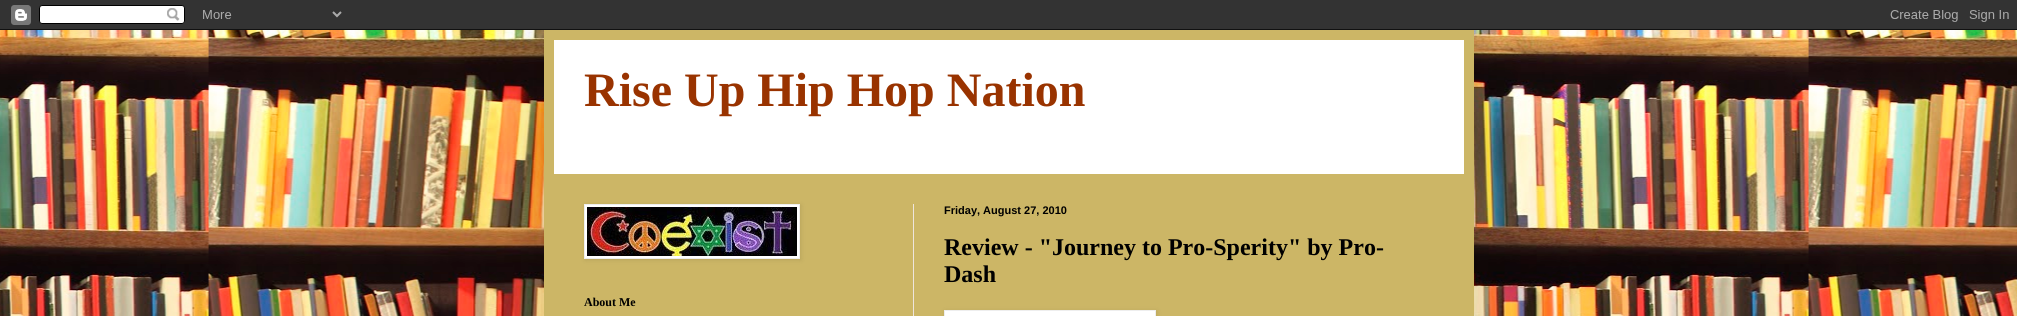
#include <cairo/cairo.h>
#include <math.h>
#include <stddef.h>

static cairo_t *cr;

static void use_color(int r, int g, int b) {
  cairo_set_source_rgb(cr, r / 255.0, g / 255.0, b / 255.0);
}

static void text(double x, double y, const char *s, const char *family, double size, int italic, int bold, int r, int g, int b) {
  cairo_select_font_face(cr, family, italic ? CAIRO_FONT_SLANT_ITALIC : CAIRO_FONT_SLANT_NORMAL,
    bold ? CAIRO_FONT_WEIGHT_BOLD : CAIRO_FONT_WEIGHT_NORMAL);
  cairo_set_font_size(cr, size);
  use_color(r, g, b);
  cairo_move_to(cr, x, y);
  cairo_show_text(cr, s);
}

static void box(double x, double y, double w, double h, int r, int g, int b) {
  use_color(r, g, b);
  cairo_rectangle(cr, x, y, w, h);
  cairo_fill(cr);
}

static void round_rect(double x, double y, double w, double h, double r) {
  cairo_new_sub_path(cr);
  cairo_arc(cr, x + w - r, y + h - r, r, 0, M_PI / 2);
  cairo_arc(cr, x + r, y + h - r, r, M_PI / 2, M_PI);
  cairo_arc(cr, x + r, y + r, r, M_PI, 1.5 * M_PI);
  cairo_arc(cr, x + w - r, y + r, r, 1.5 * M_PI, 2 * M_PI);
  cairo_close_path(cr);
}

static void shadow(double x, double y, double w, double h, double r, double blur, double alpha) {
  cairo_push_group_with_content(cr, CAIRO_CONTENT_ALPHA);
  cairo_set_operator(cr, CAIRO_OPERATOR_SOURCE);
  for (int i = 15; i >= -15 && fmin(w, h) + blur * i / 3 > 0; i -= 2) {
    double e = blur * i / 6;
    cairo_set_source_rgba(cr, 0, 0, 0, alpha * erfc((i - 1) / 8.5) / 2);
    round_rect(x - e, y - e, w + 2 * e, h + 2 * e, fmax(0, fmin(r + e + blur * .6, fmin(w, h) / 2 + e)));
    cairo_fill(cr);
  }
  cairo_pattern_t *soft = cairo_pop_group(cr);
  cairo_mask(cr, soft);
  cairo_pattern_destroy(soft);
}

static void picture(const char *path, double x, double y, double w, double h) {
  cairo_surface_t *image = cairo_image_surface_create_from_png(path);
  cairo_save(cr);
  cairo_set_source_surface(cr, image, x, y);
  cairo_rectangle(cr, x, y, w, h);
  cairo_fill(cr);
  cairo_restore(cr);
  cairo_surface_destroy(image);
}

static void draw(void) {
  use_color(255, 255, 255);
  cairo_paint(cr);
  picture("img_01.png", 0, 30, 2017, 286);
  use_color(0, 0, 0);
  shadow(544, 30, 930, 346, 0, 20, 0.15);
  picture("img_02.png", 0, 0, 2017, 30);
  box(544, 30, 930, 286, 204, 182, 102);
  box(554, 40, 910, 134, 255, 255, 255);
  box(913, 204, 1, 112, 238, 229, 221);
  use_color(0, 0, 0);
  shadow(945, 311, 212, 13, 0, 2.5, 0.1);
  use_color(255, 255, 255);
  cairo_rectangle(cr, 944.5, 310.5, 211, 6);
  cairo_fill_preserve(cr);
  use_color(238, 238, 238);
  cairo_set_line_width(cr, 1);
  cairo_stroke(cr);
  use_color(0, 0, 0);
  shadow(585, 205, 216, 55, 0, 2.5, 0.1);
  use_color(255, 255, 255);
  cairo_rectangle(cr, 584.5, 204.5, 215, 54);
  cairo_fill_preserve(cr);
  use_color(238, 238, 238);
  cairo_stroke(cr);
  picture("img_03.png", 587, 207, 210, 49);
  text(584, 106, "Rise Up Hip Hop Nation", "Liberation Serif", 48, 0, 1, 153, 51, 0);
  text(944, 214, "Friday, August 27, 2010", "Liberation Sans", 11, 0, 1, 0, 0, 0);
  text(944, 255, "Review - \"Journey to Pro-Sperity\" by Pro-", "Liberation Serif", 24, 0, 1, 0, 0, 0);
  text(944, 282, "Dash", "Liberation Serif", 24, 0, 1, 0, 0, 0);
  text(584, 306, "About Me", "Liberation Serif", 12, 0, 1, 0, 0, 0);
}

int main(void) {
  cairo_surface_t *surface = cairo_image_surface_create(CAIRO_FORMAT_RGB24, 2017, 316);
  cr = cairo_create(surface);
  cairo_font_options_t *options = cairo_font_options_create();
  cairo_font_options_set_hint_metrics(options, CAIRO_HINT_METRICS_OFF);
  cairo_font_options_set_hint_style(options, CAIRO_HINT_STYLE_NONE);
  cairo_set_font_options(cr, options);
  cairo_set_miter_limit(cr, 4);
  draw();
  cairo_surface_write_to_png(surface, "out.png");
  cairo_font_options_destroy(options);
  cairo_destroy(cr);
  cairo_surface_destroy(surface);
  return 0;
}
